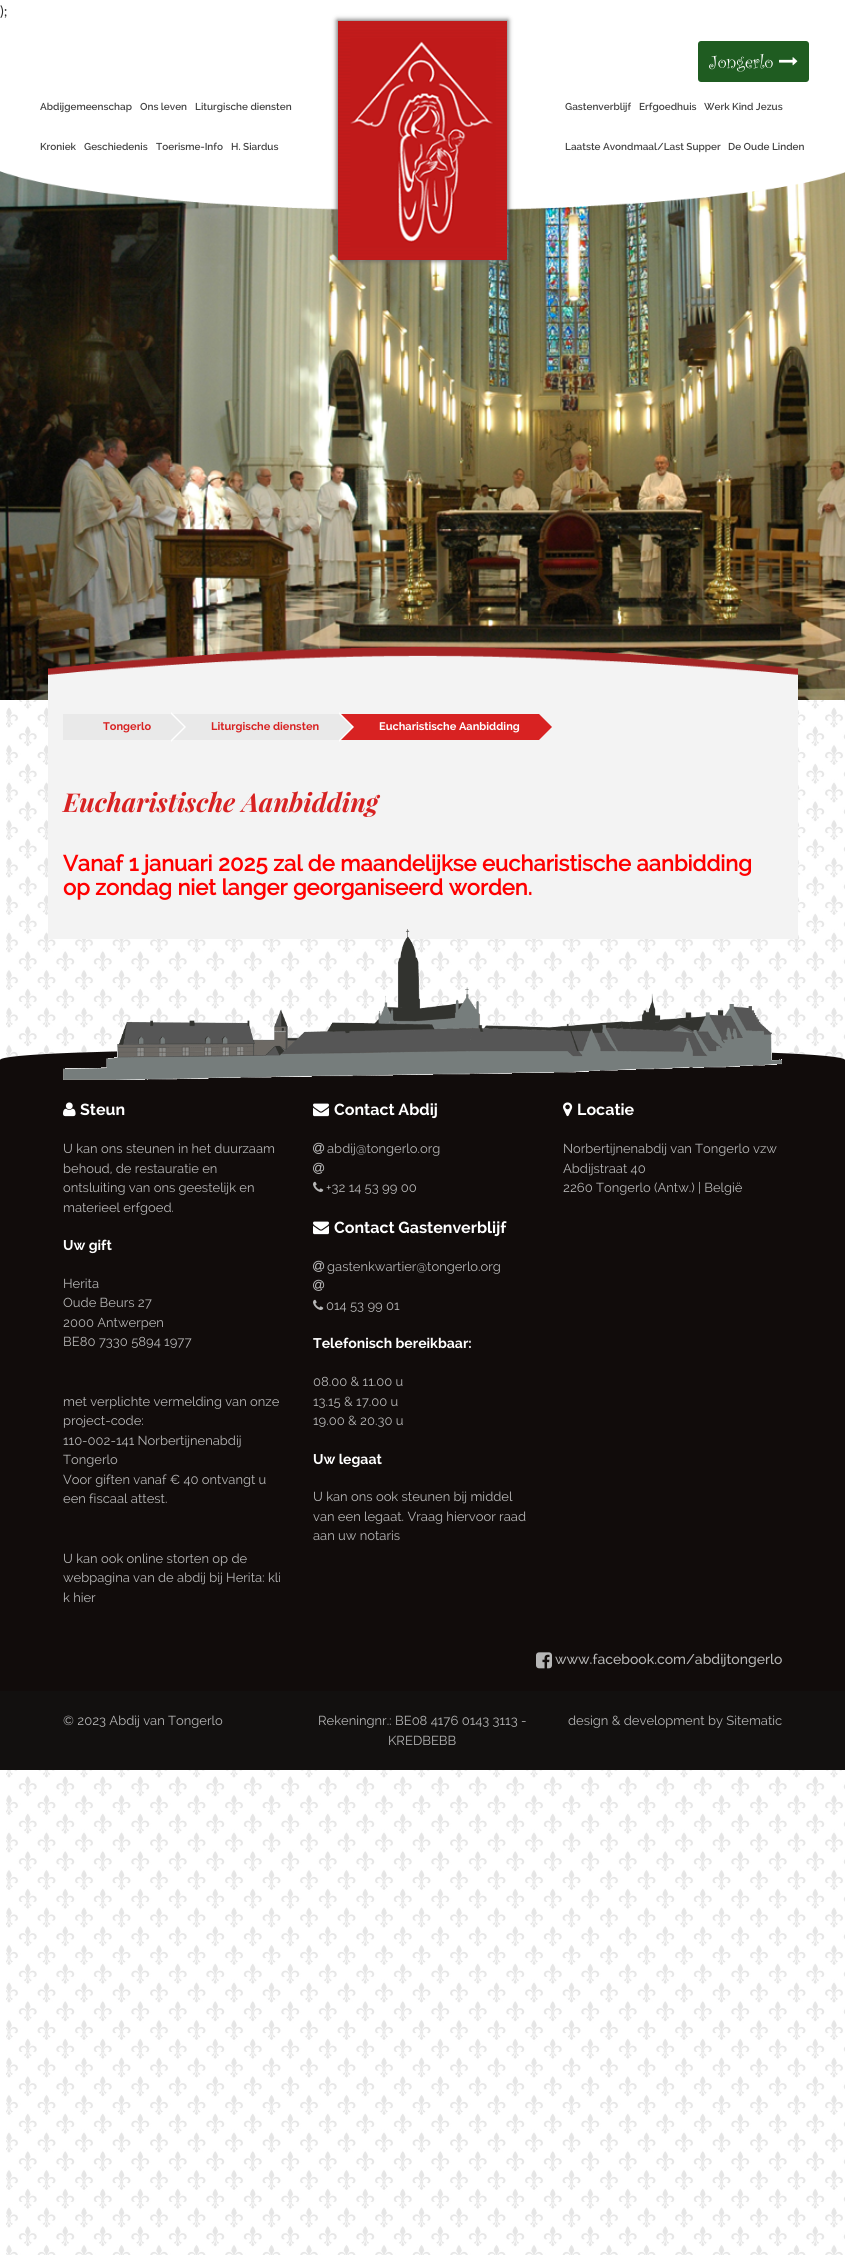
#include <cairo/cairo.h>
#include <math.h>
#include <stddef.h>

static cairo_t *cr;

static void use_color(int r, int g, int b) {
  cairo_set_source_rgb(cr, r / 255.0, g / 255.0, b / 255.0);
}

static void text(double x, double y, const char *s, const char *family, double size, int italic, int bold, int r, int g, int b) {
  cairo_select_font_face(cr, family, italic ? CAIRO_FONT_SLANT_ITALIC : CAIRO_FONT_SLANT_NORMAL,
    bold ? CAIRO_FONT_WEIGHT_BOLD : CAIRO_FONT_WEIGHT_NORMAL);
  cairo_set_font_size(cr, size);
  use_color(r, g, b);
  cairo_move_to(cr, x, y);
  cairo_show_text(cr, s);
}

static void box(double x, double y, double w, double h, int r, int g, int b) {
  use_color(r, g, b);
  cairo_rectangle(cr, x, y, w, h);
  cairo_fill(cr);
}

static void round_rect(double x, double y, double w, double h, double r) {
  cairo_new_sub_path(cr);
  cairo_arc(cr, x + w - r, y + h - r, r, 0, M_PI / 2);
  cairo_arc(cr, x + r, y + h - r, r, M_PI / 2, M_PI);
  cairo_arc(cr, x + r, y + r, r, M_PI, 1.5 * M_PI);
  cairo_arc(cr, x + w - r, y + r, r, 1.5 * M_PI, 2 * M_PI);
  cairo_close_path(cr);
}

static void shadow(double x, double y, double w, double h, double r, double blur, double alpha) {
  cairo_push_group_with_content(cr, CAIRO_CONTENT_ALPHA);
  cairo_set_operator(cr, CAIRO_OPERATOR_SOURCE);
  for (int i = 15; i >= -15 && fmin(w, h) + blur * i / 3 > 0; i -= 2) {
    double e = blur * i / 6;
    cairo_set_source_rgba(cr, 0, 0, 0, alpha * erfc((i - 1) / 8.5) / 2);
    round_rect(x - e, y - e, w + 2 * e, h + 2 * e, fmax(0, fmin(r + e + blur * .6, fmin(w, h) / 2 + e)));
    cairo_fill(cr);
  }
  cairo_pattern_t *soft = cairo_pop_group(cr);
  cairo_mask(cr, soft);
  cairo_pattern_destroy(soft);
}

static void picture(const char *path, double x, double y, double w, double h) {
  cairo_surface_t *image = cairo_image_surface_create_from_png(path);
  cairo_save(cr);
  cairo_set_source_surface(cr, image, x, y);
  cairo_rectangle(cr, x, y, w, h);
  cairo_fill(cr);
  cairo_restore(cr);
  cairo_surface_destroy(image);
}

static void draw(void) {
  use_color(255, 255, 255);
  cairo_paint(cr);
  picture("img_01.png", 6, 700, 839, 1555);
  picture("img_05.png", 0, 171, 845, 529);
  picture("img_04.png", 0, 167, 845, 43);
  use_color(102, 102, 102);
  shadow(337, 20, 171, 241, 0, 2.5, 1);
  picture("img_02.png", 338, 21, 169, 239);
  use_color(31, 92, 33);
  round_rect(698, 41, 111, 41, 3);
  cairo_fill(cr);
  picture("img_03.png", 779, 57, 19, 9);
  picture("img_06.png", 48, 646, 750, 59);
  box(48, 705, 750, 234, 243, 243, 243);
  box(63, 714, 108, 26, 233, 233, 233);
  box(173, 714, 166, 26, 233, 233, 233);
  use_color(255, 255, 255);
  cairo_new_path(cr);
  cairo_move_to(cr, 171, 742);
  cairo_line_to(cr, 171, 712);
  cairo_line_to(cr, 186, 727);
  cairo_close_path(cr);
  cairo_fill(cr);
  use_color(233, 233, 233);
  cairo_new_path(cr);
  cairo_move_to(cr, 171, 740);
  cairo_line_to(cr, 171, 714);
  cairo_line_to(cr, 184, 727);
  cairo_close_path(cr);
  cairo_fill(cr);
  box(341, 714, 198, 26, 216, 34, 34);
  use_color(255, 255, 255);
  cairo_new_path(cr);
  cairo_move_to(cr, 339, 742);
  cairo_line_to(cr, 339, 712);
  cairo_line_to(cr, 354, 727);
  cairo_close_path(cr);
  cairo_fill(cr);
  use_color(233, 233, 233);
  cairo_new_path(cr);
  cairo_move_to(cr, 339, 740);
  cairo_line_to(cr, 339, 714);
  cairo_line_to(cr, 352, 727);
  cairo_close_path(cr);
  cairo_fill(cr);
  use_color(216, 34, 34);
  cairo_new_path(cr);
  cairo_move_to(cr, 539, 740);
  cairo_line_to(cr, 539, 714);
  cairo_line_to(cr, 552, 727);
  cairo_close_path(cr);
  cairo_fill(cr);
  use_color(17, 12, 11);
  cairo_new_path(cr);
  cairo_move_to(cr, 250, 1050);
  cairo_line_to(cr, 595, 1050);
  cairo_curve_to(cr, 733, 1050, 845, 1054, 845, 1060);
  cairo_line_to(cr, 845, 1770);
  cairo_line_to(cr, 0, 1770);
  cairo_line_to(cr, 0, 1060);
  cairo_curve_to(cr, 0, 1054, 112, 1050, 250, 1050);
  cairo_close_path(cr);
  cairo_fill(cr);
  picture("img_07.png", 63, 929, 719, 151);
  picture("img_08.png", 63, 1102, 13, 15);
  picture("img_09.png", 313, 1103, 16, 14);
  picture("img_10.png", 313, 1142, 12, 12);
  picture("img_10.png", 313, 1162, 12, 12);
  picture("img_11.png", 313, 1181, 11, 11);
  picture("img_09.png", 313, 1221, 16, 14);
  picture("img_10.png", 313, 1260, 12, 12);
  picture("img_10.png", 313, 1279, 12, 12);
  picture("img_11.png", 313, 1299, 11, 11);
  picture("img_12.png", 563, 1102, 10, 15);
  picture("img_13.png", 536, 1652, 16, 17);
  box(0, 1691, 845, 79, 18, 16, 15);
  text(0, 16, ");", "Lato", 14, 0, 0, 43, 43, 43);
  text(709, 68, "Jongerlo", "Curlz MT", 19, 0, 0, 255, 255, 255);
  text(40, 110, "Abdijgemeenschap", "Raleway SemiBold", 10, 0, 0, 67, 67, 67);
  text(140, 110, "Ons leven", "Raleway SemiBold", 10, 0, 0, 67, 67, 67);
  text(195, 110, "Liturgische diensten", "Raleway SemiBold", 10, 0, 0, 67, 67, 67);
  text(40, 150, "Kroniek", "Raleway SemiBold", 10, 0, 0, 67, 67, 67);
  text(84, 150, "Geschiedenis", "Raleway SemiBold", 10, 0, 0, 67, 67, 67);
  text(156, 150, "Toerisme-Info", "Raleway SemiBold", 10, 0, 0, 67, 67, 67);
  text(231, 150, "H. Siardus", "Raleway SemiBold", 10, 0, 0, 67, 67, 67);
  text(565, 110, "Gastenverblijf", "Raleway SemiBold", 10, 0, 0, 67, 67, 67);
  text(639, 110, "Erfgoedhuis", "Raleway SemiBold", 10, 0, 0, 67, 67, 67);
  text(704, 110, "Werk Kind Jezus", "Raleway SemiBold", 10, 0, 0, 67, 67, 67);
  text(565, 150, "Laatste Avondmaal/Last Supper", "Raleway SemiBold", 10, 0, 0, 67, 67, 67);
  text(728, 150, "De Oude Linden", "Raleway SemiBold", 10, 0, 0, 67, 67, 67);
  text(103, 730, "Tongerlo", "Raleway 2", 11, 0, 1, 216, 34, 34);
  text(211, 730, "Liturgische diensten", "Raleway 2", 11, 0, 1, 216, 34, 34);
  text(379, 730, "Eucharistische Aanbidding", "Raleway 2", 11, 0, 1, 255, 255, 255);
  text(63, 812, "Eucharistische Aanbidding", "Playfair Display", 26, 1, 1, 216, 34, 34);
  text(63, 871, "Vanaf 1 januari 2025 zal de maandelijkse eucharistische aanbidding", "Raleway", 22, 0, 1, 255, 0, 0);
  text(63, 895, "op zondag niet langer georganiseerd worden.", "Raleway", 22, 0, 1, 255, 0, 0);
  text(80, 1115, "Steun", "Raleway 2", 16, 0, 1, 255, 255, 255);
  text(63, 1153, "U kan ons steunen in het duurzaam", "Raleway", 13, 0, 0, 183, 183, 183);
  text(63, 1173, "behoud, de restauratie en", "Raleway", 13, 0, 0, 183, 183, 183);
  text(63, 1192, "ontsluiting van ons geestelijk en", "Raleway", 13, 0, 0, 183, 183, 183);
  text(63, 1212, "materieel erfgoed.", "Raleway", 13, 0, 0, 183, 183, 183);
  text(63, 1250, "Uw gift", "Raleway 2", 14, 0, 1, 255, 255, 255);
  text(63, 1288, "Herita", "Raleway", 13, 0, 0, 183, 183, 183);
  text(63, 1307, "Oude Beurs 27", "Raleway", 13, 0, 0, 183, 183, 183);
  text(63, 1327, "2000 Antwerpen", "Raleway", 13, 0, 0, 183, 183, 183);
  text(63, 1346, "BE80 7330 5894 1977", "Raleway", 13, 0, 0, 183, 183, 183);
  text(63, 1406, "met verplichte vermelding van onze", "Raleway", 13, 0, 0, 183, 183, 183);
  text(63, 1425, "project-code:", "Raleway", 13, 0, 0, 183, 183, 183);
  text(63, 1445, "110-002-141 Norbertijnenabdij", "Raleway", 13, 0, 0, 183, 183, 183);
  text(63, 1464, "Tongerlo", "Raleway", 13, 0, 0, 183, 183, 183);
  text(63, 1484, "Voor giften vanaf € 40 ontvangt u", "Raleway", 13, 0, 0, 183, 183, 183);
  text(63, 1503, "een fiscaal attest.", "Raleway", 13, 0, 0, 183, 183, 183);
  text(63, 1563, "U kan ook online storten op de", "Raleway", 13, 0, 0, 183, 183, 183);
  text(63, 1582, "webpagina van de abdij bij Herita: kli", "Raleway", 13, 0, 0, 183, 183, 183);
  text(63, 1602, "k hier", "Raleway", 13, 0, 0, 183, 183, 183);
  text(334, 1115, "Contact Abdij", "Raleway 2", 16, 0, 1, 255, 255, 255);
  text(327, 1153, "abdij@tongerlo.org", "Raleway", 13, 0, 0, 183, 183, 183);
  text(326, 1192, "+32 14 53 99 00", "Raleway", 13, 0, 0, 183, 183, 183);
  text(334, 1233, "Contact Gastenverblijf", "Raleway 2", 16, 0, 1, 255, 255, 255);
  text(327, 1271, "gastenkwartier@tongerlo.org", "Raleway", 13, 0, 0, 183, 183, 183);
  text(326, 1310, "014 53 99 01", "Raleway", 13, 0, 0, 183, 183, 183);
  text(313, 1348, "Telefonisch bereikbaar:", "Raleway 2", 14, 0, 1, 255, 255, 255);
  text(313, 1386, "08.00 & 11.00 u", "Raleway", 13, 0, 0, 183, 183, 183);
  text(313, 1406, "13.15 & 17.00 u", "Raleway", 13, 0, 0, 183, 183, 183);
  text(313, 1425, "19.00 & 20.30 u", "Raleway", 13, 0, 0, 183, 183, 183);
  text(313, 1464, "Uw legaat", "Raleway 2", 14, 0, 1, 255, 255, 255);
  text(313, 1501, "U kan ons ook steunen bij middel", "Raleway", 13, 0, 0, 183, 183, 183);
  text(313, 1521, "van een legaat. Vraag hiervoor raad", "Raleway", 13, 0, 0, 183, 183, 183);
  text(313, 1540, "aan uw notaris", "Raleway", 13, 0, 0, 183, 183, 183);
  text(577, 1115, "Locatie", "Raleway 2", 16, 0, 1, 255, 255, 255);
  text(563, 1153, "Norbertijnenabdij van Tongerlo vzw", "Raleway", 13, 0, 0, 183, 183, 183);
  text(563, 1173, "Abdijstraat 40", "Raleway", 13, 0, 0, 183, 183, 183);
  text(563, 1192, "2260 Tongerlo (Antw.) | België", "Raleway", 13, 0, 0, 183, 183, 183);
  text(555, 1664, "www.facebook.com/abdijtongerlo", "Raleway Medium", 14, 0, 0, 183, 183, 183);
  text(63, 1725, "© 2023 Abdij van Tongerlo", "Raleway", 13, 0, 0, 183, 183, 183);
  text(318, 1725, "Rekeningnr.: BE08 4176 0143 3113 -", "Raleway", 13, 0, 0, 183, 183, 183);
  text(388, 1745, "KREDBEBB", "Raleway", 13, 0, 0, 183, 183, 183);
  text(568, 1725, "design & development by Sitematic", "Raleway", 13, 0, 0, 183, 183, 183);
}

int main(void) {
  cairo_surface_t *surface = cairo_image_surface_create(CAIRO_FORMAT_RGB24, 845, 2255);
  cr = cairo_create(surface);
  cairo_font_options_t *options = cairo_font_options_create();
  cairo_font_options_set_hint_metrics(options, CAIRO_HINT_METRICS_OFF);
  cairo_font_options_set_hint_style(options, CAIRO_HINT_STYLE_NONE);
  cairo_set_font_options(cr, options);
  cairo_set_miter_limit(cr, 4);
  draw();
  cairo_surface_write_to_png(surface, "out.png");
  cairo_font_options_destroy(options);
  cairo_destroy(cr);
  cairo_surface_destroy(surface);
  return 0;
}
